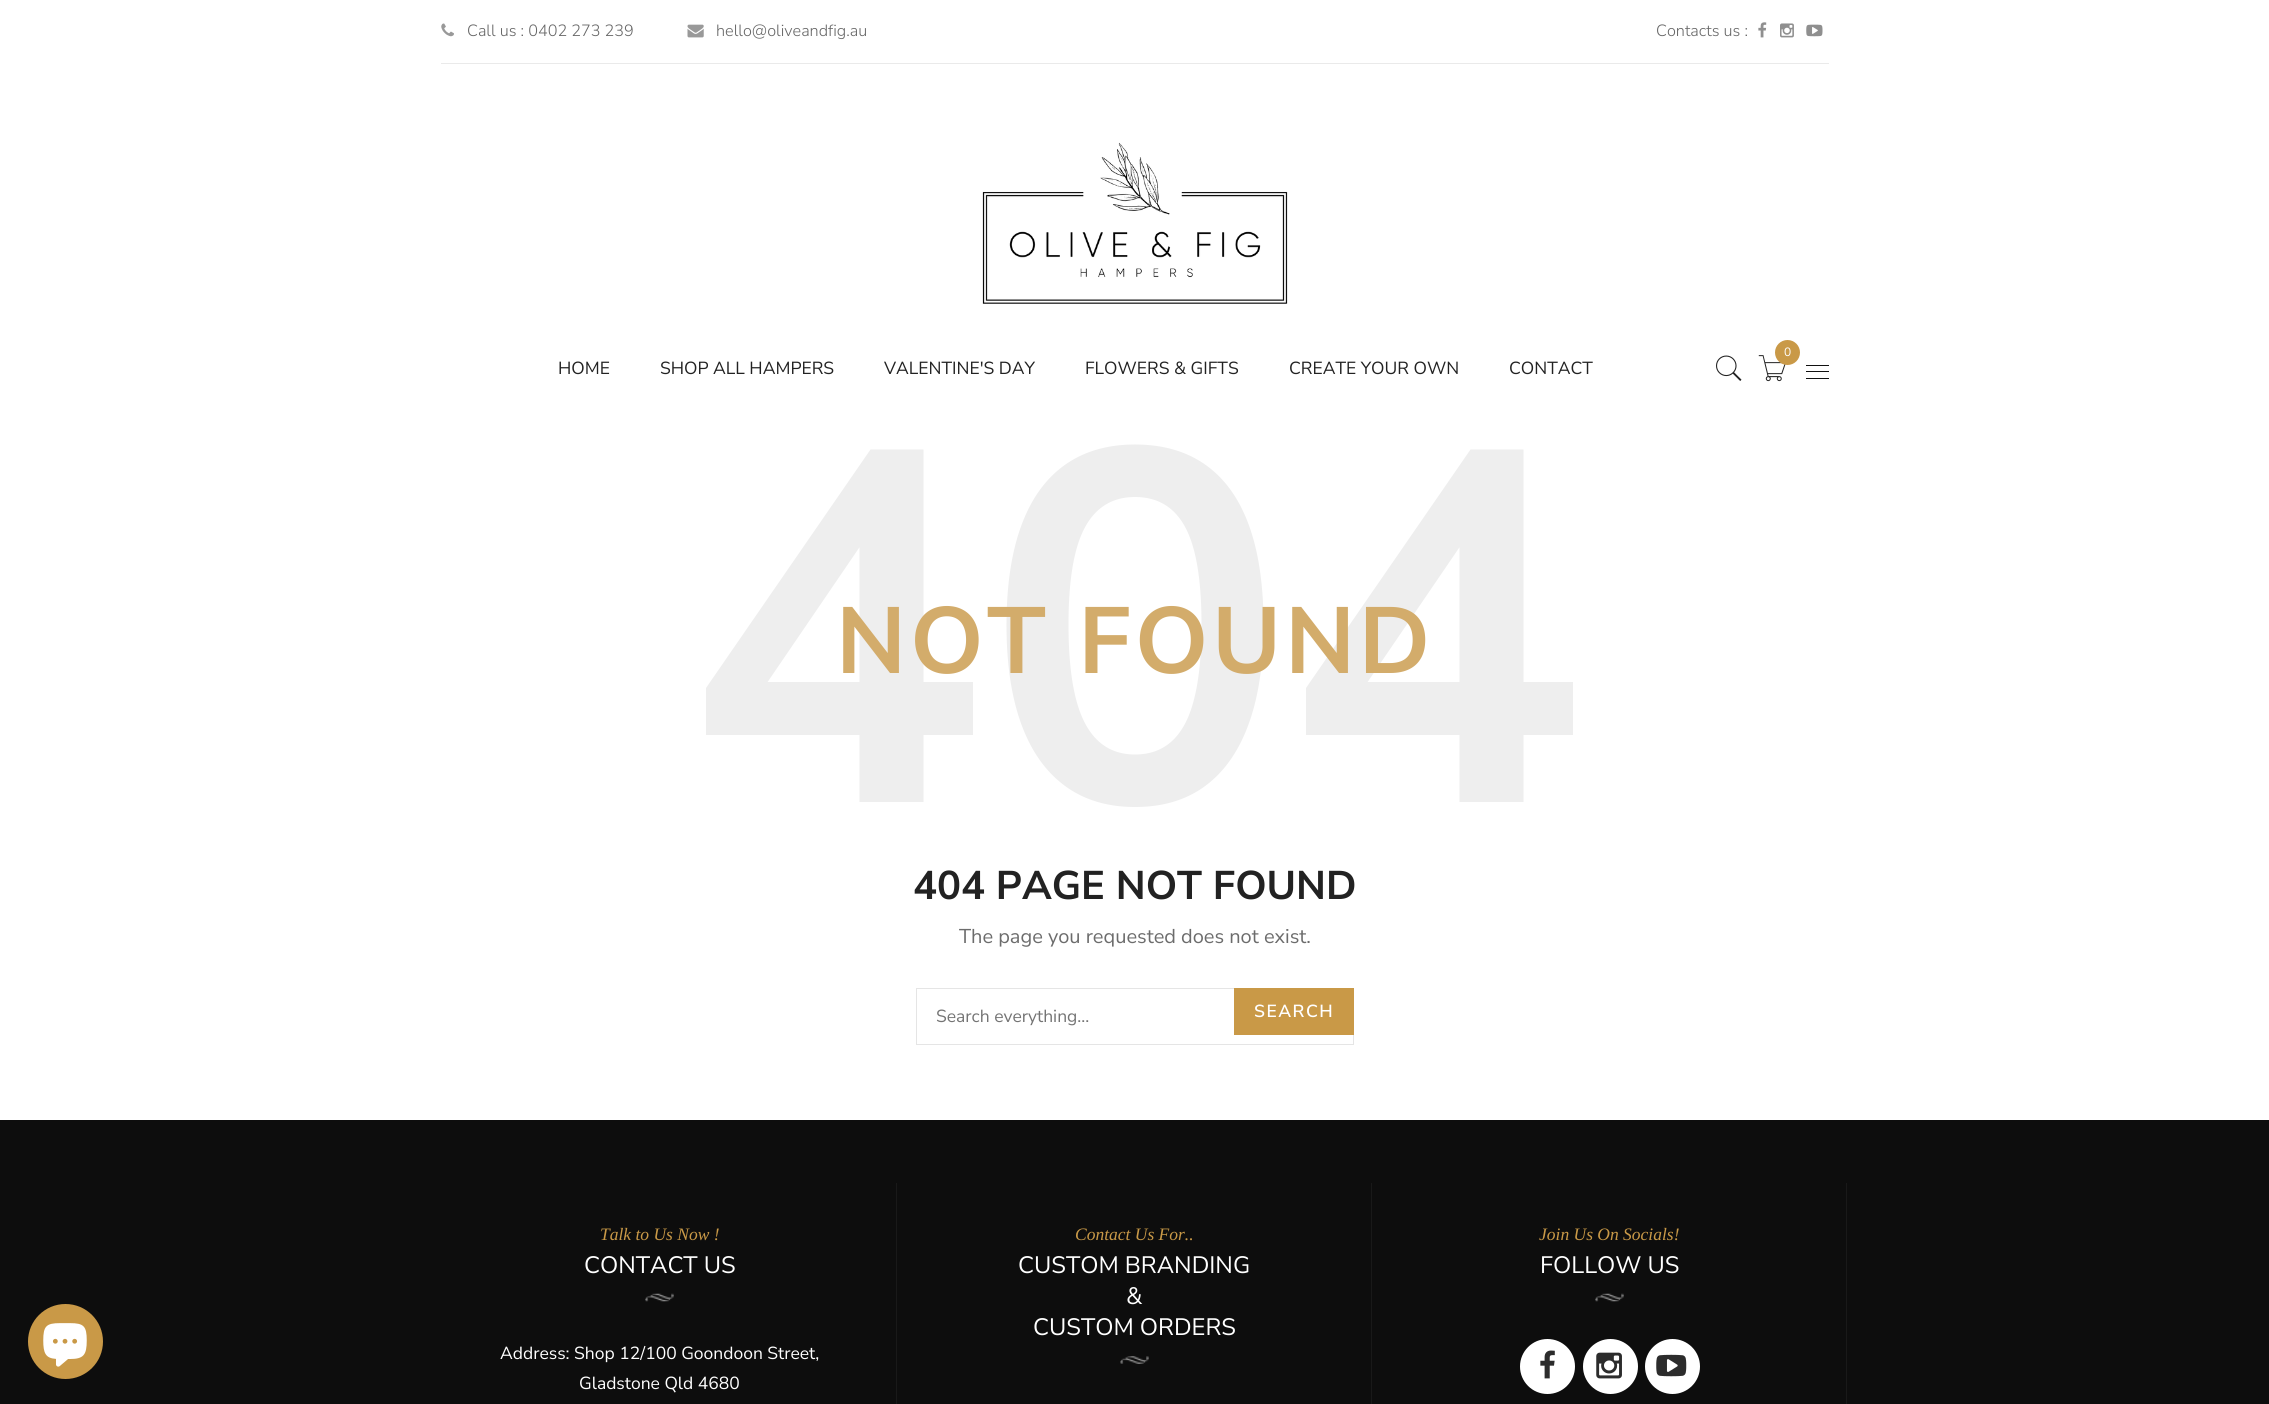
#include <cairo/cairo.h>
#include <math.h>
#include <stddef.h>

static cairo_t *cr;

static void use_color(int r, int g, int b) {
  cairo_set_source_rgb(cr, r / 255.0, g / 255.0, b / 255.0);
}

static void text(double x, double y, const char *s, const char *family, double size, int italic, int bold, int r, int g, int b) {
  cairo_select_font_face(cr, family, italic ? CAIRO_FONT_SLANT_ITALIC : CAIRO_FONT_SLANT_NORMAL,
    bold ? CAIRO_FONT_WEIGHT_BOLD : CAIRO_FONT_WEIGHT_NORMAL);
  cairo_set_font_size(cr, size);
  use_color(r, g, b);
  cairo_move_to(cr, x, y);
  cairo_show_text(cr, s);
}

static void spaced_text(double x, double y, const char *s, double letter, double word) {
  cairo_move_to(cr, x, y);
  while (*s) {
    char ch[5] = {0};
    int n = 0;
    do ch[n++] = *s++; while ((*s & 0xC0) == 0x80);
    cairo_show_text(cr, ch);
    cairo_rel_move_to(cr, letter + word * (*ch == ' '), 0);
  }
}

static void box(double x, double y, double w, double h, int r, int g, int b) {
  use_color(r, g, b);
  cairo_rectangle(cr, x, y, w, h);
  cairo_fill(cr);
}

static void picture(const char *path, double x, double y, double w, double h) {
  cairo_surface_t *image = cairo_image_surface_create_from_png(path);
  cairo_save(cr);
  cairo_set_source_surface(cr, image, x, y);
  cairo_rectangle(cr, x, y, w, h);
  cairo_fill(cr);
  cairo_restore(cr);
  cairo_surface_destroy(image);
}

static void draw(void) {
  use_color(255, 255, 255);
  cairo_paint(cr);
  box(441, 63, 1388, 1, 234, 234, 234);
  picture("img_01.png", 441, 23, 13, 14);
  picture("img_02.png", 687, 24, 17, 14);
  picture("img_03.png", 1758, 22, 9, 16);
  picture("img_04.png", 1780, 23, 14, 15);
  picture("img_05.png", 1806, 24, 17, 13);
  picture("img_06.png", 982, 142, 306, 162);
  picture("img_07.png", 1758, 355, 28, 27);
  use_color(201, 153, 71);
  cairo_arc(cr, 1787.5, 352.5, 12.5, 0, 2 * M_PI);
  cairo_fill(cr);
  picture("img_08.png", 1716, 355, 26, 26);
  box(1806, 365, 23, 1, 17, 17, 17);
  box(1806, 371, 23, 1, 17, 17, 17);
  box(1806, 378, 23, 1, 17, 17, 17);
  box(0, 1120, 2269, 284, 13, 13, 13);
  use_color(201, 153, 71);
  cairo_arc(cr, 65.5, 1341.5, 37.5, 0, 2 * M_PI);
  cairo_fill(cr);
  picture("img_09.png", 43, 1323, 44, 44);
  cairo_rectangle(cr, 916.5, 988.5, 437, 56);
  use_color(229, 229, 229);
  cairo_set_line_width(cr, 1);
  cairo_stroke(cr);
  box(1234, 988, 120, 47, 201, 153, 71);
  box(896, 1183, 1, 221, 25, 25, 25);
  picture("img_10.png", 645, 1293, 29, 9);
  box(1371, 1183, 1, 221, 25, 25, 25);
  picture("img_11.png", 1120, 1356, 29, 8);
  box(1846, 1183, 1, 221, 25, 25, 25);
  picture("img_10.png", 1595, 1293, 29, 9);
  use_color(255, 255, 255);
  cairo_arc(cr, 1547.5, 1366.5, 27.5, 0, 2 * M_PI);
  cairo_fill(cr);
  picture("img_12.png", 1540, 1350, 15, 29);
  cairo_arc(cr, 1610.5, 1366.5, 27.5, 0, 2 * M_PI);
  cairo_fill(cr);
  picture("img_13.png", 1596, 1352, 26, 27);
  cairo_arc(cr, 1672.5, 1366.5, 27.5, 0, 2 * M_PI);
  cairo_fill(cr);
  picture("img_14.png", 1656, 1354, 31, 23);
  text(467, 36, "Call us : 0402 273 239", "Nunito Sans Light", 16.25, 0, 0, 102, 102, 102);
  text(716, 36, "hello@oliveandfig.au", "Nunito Sans Light", 16.25, 0, 0, 102, 102, 102);
  text(1656, 36, "Contacts us :", "Nunito Sans Light", 16.25, 0, 0, 102, 102, 102);
  text(1784, 356, "0", "Nunito Sans", 12, 0, 0, 255, 255, 255);
  text(558, 374, "HOME", "Nunito Sans", 17.5, 0, 0, 34, 34, 34);
  text(660, 374, "SHOP ALL HAMPERS", "Nunito Sans", 17.5, 0, 0, 34, 34, 34);
  text(884, 374, "VALENTINE'S DAY", "Nunito Sans", 17.5, 0, 0, 34, 34, 34);
  text(1085, 374, "FLOWERS & GIFTS", "Nunito Sans", 17.5, 0, 0, 34, 34, 34);
  text(1289, 374, "CREATE YOUR OWN", "Nunito Sans", 17.5, 0, 0, 34, 34, 34);
  text(1509, 374, "CONTACT", "Nunito Sans", 17.5, 0, 0, 34, 34, 34);
  text(685, 802, "404", "Nunito Sans", 500, 0, 1, 238, 238, 238);
  cairo_set_font_size(cr, 93.75);
  use_color(211, 172, 107);
  spaced_text(836, 673, "NOT FOUND", 3.75, 0);
  text(913, 899, "404 PAGE NOT FOUND", "Nunito Sans", 40, 0, 1, 34, 34, 34);
  text(959, 943, "The page you requested does not exist.", "Nunito Sans", 20, 0, 0, 108, 108, 108);
  text(936, 1022, "Search everything...", "Nunito Sans", 17.5, 0, 0, 116, 116, 116);
  cairo_select_font_face(cr, "Nunito Sans SemiBold", CAIRO_FONT_SLANT_NORMAL, CAIRO_FONT_WEIGHT_NORMAL);
  use_color(255, 255, 255);
  spaced_text(1254, 1017, "SEARCH", 1.5, 0);
  text(600, 1240, "Talk to Us Now !", "Liberation Serif", 17.5, 1, 0, 201, 153, 71);
  text(584, 1273, "CONTACT US", "Nunito Sans", 23.75, 0, 0, 255, 255, 255);
  text(500, 1359, "Address: Shop 12/100 Goondoon Street,", "Nunito Sans", 17.5, 0, 0, 255, 255, 255);
  text(579, 1389, "Gladstone Qld 4680", "Nunito Sans", 17.5, 0, 0, 255, 255, 255);
  text(1075, 1240, "Contact Us For..", "Liberation Serif", 17.5, 1, 0, 201, 153, 71);
  text(1018, 1273, "CUSTOM BRANDING", "Nunito Sans", 23.75, 0, 0, 255, 255, 255);
  text(1126, 1304, "&", "Nunito Sans", 23.75, 0, 0, 255, 255, 255);
  text(1033, 1335, "CUSTOM ORDERS", "Nunito Sans", 23.75, 0, 0, 255, 255, 255);
  text(1539, 1240, "Join Us On Socials!", "Liberation Serif", 17.5, 1, 0, 201, 153, 71);
  text(1540, 1273, "FOLLOW US", "Nunito Sans", 23.75, 0, 0, 255, 255, 255);
}

int main(void) {
  cairo_surface_t *surface = cairo_image_surface_create(CAIRO_FORMAT_RGB24, 2269, 1404);
  cr = cairo_create(surface);
  cairo_font_options_t *options = cairo_font_options_create();
  cairo_font_options_set_hint_metrics(options, CAIRO_HINT_METRICS_OFF);
  cairo_font_options_set_hint_style(options, CAIRO_HINT_STYLE_NONE);
  cairo_set_font_options(cr, options);
  cairo_set_miter_limit(cr, 4);
  draw();
  cairo_surface_write_to_png(surface, "out.png");
  cairo_font_options_destroy(options);
  cairo_destroy(cr);
  cairo_surface_destroy(surface);
  return 0;
}
